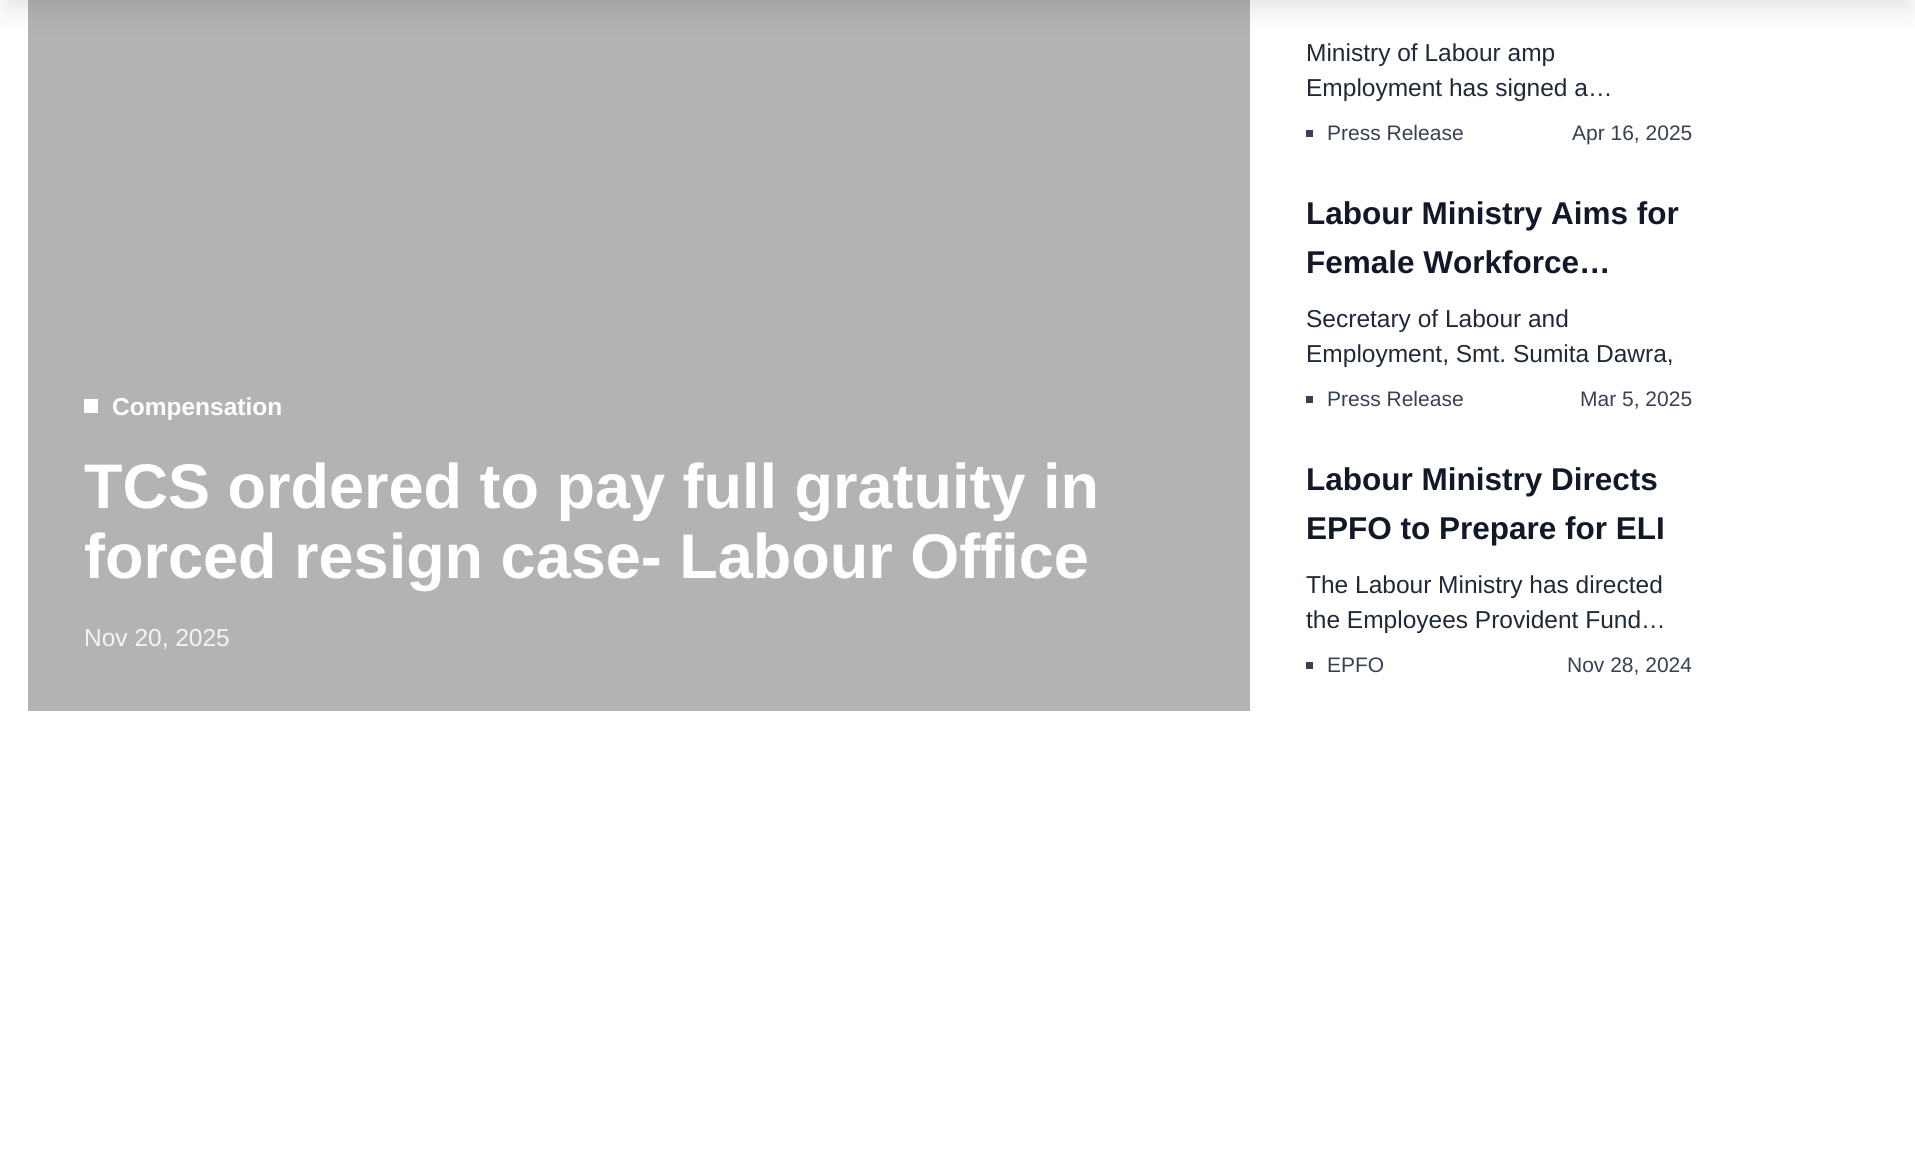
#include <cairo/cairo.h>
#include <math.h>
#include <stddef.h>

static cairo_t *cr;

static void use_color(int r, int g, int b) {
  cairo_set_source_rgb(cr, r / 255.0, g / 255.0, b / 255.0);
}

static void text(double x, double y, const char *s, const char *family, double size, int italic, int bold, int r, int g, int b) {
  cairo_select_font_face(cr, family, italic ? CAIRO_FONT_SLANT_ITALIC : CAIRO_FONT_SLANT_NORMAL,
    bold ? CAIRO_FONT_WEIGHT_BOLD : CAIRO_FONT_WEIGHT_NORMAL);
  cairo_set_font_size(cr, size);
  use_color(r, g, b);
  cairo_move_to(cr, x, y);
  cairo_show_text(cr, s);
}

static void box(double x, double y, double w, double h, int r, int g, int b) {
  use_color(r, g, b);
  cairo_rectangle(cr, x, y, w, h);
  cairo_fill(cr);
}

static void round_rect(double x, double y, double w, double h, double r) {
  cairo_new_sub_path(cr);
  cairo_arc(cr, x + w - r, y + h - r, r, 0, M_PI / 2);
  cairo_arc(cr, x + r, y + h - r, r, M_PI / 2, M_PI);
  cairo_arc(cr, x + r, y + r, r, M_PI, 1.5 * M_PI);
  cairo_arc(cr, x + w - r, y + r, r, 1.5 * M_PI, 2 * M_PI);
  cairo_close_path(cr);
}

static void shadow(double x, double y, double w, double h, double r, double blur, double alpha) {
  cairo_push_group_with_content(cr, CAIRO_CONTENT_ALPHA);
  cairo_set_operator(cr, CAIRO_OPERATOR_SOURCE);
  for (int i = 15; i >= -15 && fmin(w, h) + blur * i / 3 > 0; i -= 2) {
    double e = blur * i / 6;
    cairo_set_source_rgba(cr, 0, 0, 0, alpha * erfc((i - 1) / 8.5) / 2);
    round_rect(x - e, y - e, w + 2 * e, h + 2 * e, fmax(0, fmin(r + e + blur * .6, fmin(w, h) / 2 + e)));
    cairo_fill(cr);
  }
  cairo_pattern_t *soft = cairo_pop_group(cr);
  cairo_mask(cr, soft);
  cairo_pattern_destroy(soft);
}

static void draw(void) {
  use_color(255, 255, 255);
  cairo_paint(cr);
  box(28, 0, 1222, 711, 179, 179, 179);
  use_color(0, 0, 0);
  shadow(5, -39, 1906, 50, 0, 13, 0.1);
  box(84, 399, 14, 14, 255, 255, 255);
  box(1306, 130, 7, 7, 55, 65, 81);
  box(1306, 396, 7, 7, 55, 65, 81);
  box(1306, 662, 7, 7, 55, 65, 81);
  text(112, 415, "Compensation", "Liberation Sans", 24.5, 0, 1, 255, 255, 255);
  text(84, 508, "TCS ordered to pay full gratuity in", "Liberation Sans", 63, 0, 1, 255, 255, 255);
  text(84, 578, "forced resign case- Labour Office", "Liberation Sans", 63, 0, 1, 255, 255, 255);
  text(84, 646, "Nov 20, 2025", "Liberation Sans", 24.5, 0, 0, 243, 244, 246);
  text(1306, 61, "Ministry of Labour amp", "Liberation Sans", 24.5, 0, 0, 31, 41, 55);
  text(1306, 96, "Employment has signed a…", "Liberation Sans", 24.5, 0, 0, 31, 41, 55);
  text(1327, 140, "Press Release", "Liberation Sans", 21, 0, 0, 55, 65, 81);
  text(1572, 140, "Apr 16, 2025", "Liberation Sans", 21, 0, 0, 55, 65, 81);
  text(1306, 224, "Labour Ministry Aims for", "Liberation Sans", 31.5, 0, 1, 17, 24, 39);
  text(1306, 273, "Female Workforce…", "Liberation Sans", 31.5, 0, 1, 17, 24, 39);
  text(1306, 327, "Secretary of Labour and", "Liberation Sans", 24.5, 0, 0, 31, 41, 55);
  text(1306, 362, "Employment, Smt. Sumita Dawra,", "Liberation Sans", 24.5, 0, 0, 31, 41, 55);
  text(1327, 406, "Press Release", "Liberation Sans", 21, 0, 0, 55, 65, 81);
  text(1580, 406, "Mar 5, 2025", "Liberation Sans", 21, 0, 0, 55, 65, 81);
  text(1306, 490, "Labour Ministry Directs", "Liberation Sans", 31.5, 0, 1, 17, 24, 39);
  text(1306, 539, "EPFO to Prepare for ELI", "Liberation Sans", 31.5, 0, 1, 17, 24, 39);
  text(1306, 593, "The Labour Ministry has directed", "Liberation Sans", 24.5, 0, 0, 31, 41, 55);
  text(1306, 628, "the Employees Provident Fund…", "Liberation Sans", 24.5, 0, 0, 31, 41, 55);
  text(1327, 672, "EPFO", "Liberation Sans", 21, 0, 0, 55, 65, 81);
  text(1567, 672, "Nov 28, 2024", "Liberation Sans", 21, 0, 0, 55, 65, 81);
}

int main(void) {
  cairo_surface_t *surface = cairo_image_surface_create(CAIRO_FORMAT_RGB24, 1915, 1170);
  cr = cairo_create(surface);
  cairo_font_options_t *options = cairo_font_options_create();
  cairo_font_options_set_hint_metrics(options, CAIRO_HINT_METRICS_OFF);
  cairo_font_options_set_hint_style(options, CAIRO_HINT_STYLE_NONE);
  cairo_set_font_options(cr, options);
  cairo_set_miter_limit(cr, 4);
  draw();
  cairo_surface_write_to_png(surface, "out.png");
  cairo_font_options_destroy(options);
  cairo_destroy(cr);
  cairo_surface_destroy(surface);
  return 0;
}
